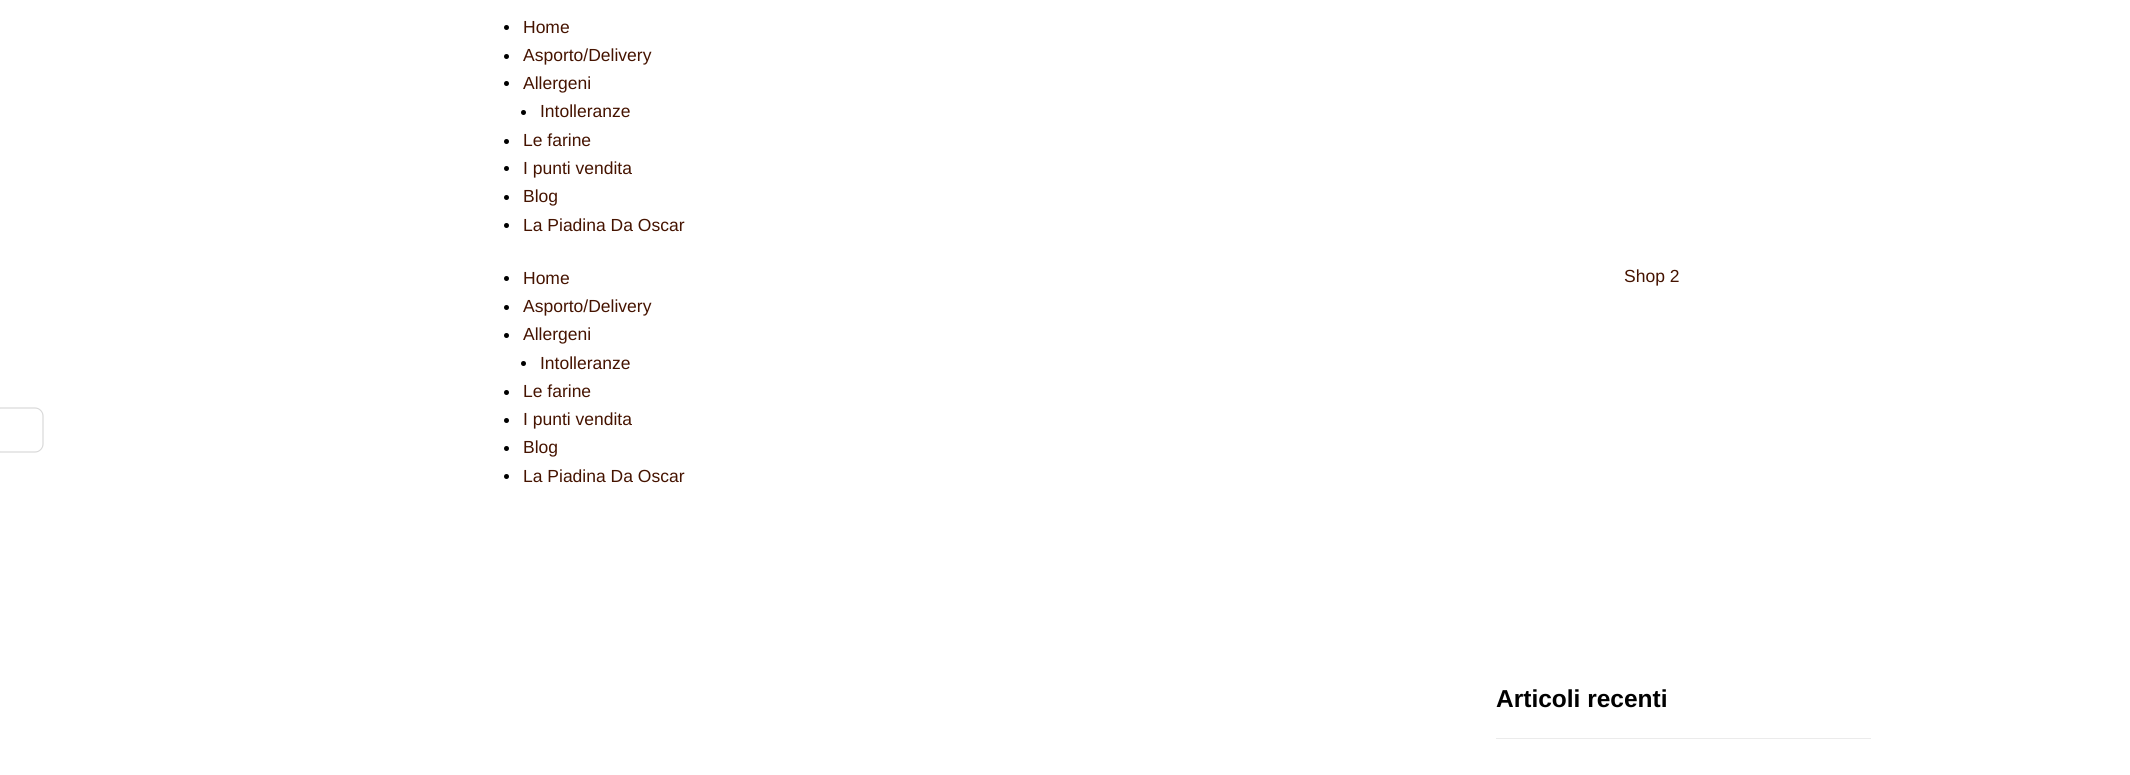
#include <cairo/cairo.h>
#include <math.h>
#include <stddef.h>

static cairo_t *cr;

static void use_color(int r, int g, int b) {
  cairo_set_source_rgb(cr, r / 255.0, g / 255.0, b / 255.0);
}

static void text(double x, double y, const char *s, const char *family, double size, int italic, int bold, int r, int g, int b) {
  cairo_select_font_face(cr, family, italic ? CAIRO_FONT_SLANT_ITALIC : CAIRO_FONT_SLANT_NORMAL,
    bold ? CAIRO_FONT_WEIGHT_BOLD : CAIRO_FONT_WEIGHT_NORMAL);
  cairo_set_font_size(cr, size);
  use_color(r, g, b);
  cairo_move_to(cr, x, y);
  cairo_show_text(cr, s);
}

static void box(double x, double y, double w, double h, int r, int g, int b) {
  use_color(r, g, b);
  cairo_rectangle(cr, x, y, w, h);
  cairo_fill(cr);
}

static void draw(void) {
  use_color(255, 255, 255);
  cairo_paint(cr);
  cairo_new_path(cr);
  cairo_move_to(cr, 43, 416);
  cairo_line_to(cr, 43, 444);
  cairo_curve_to(cr, 43, 448, 39.5, 452, 35, 452);
  cairo_line_to(cr, -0.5, 452);
  cairo_line_to(cr, -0.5, 408);
  cairo_line_to(cr, 35, 408);
  cairo_curve_to(cr, 39.5, 408, 43, 412, 43, 416);
  cairo_close_path(cr);
  use_color(217, 217, 217);
  cairo_set_line_width(cr, 1.2);
  cairo_stroke(cr);
  use_color(255, 255, 255);
  cairo_new_path(cr);
  cairo_move_to(cr, 42, 416);
  cairo_line_to(cr, 42, 444);
  cairo_curve_to(cr, 42, 448, 39, 451, 35, 451);
  cairo_line_to(cr, 0, 451);
  cairo_line_to(cr, 0, 409);
  cairo_line_to(cr, 35, 409);
  cairo_curve_to(cr, 39, 409, 42, 412, 42, 416);
  cairo_close_path(cr);
  cairo_fill(cr);
  use_color(0, 0, 0);
  cairo_arc(cr, 506.5, 27.5, 2.5, 0, 2 * M_PI);
  cairo_fill(cr);
  cairo_arc(cr, 506.5, 56.5, 2.5, 0, 2 * M_PI);
  cairo_fill(cr);
  cairo_arc(cr, 506.5, 83.5, 2.5, 0, 2 * M_PI);
  cairo_fill(cr);
  cairo_arc(cr, 523.5, 112.5, 2.5, 0, 2 * M_PI);
  cairo_fill(cr);
  cairo_arc(cr, 506.5, 141.5, 2.5, 0, 2 * M_PI);
  cairo_fill(cr);
  cairo_arc(cr, 506.5, 168.5, 2.5, 0, 2 * M_PI);
  cairo_fill(cr);
  cairo_arc(cr, 506.5, 197.5, 2.5, 0, 2 * M_PI);
  cairo_fill(cr);
  cairo_arc(cr, 506.5, 225.5, 2.5, 0, 2 * M_PI);
  cairo_fill(cr);
  cairo_arc(cr, 506.5, 278.5, 2.5, 0, 2 * M_PI);
  cairo_fill(cr);
  cairo_arc(cr, 506.5, 307.5, 2.5, 0, 2 * M_PI);
  cairo_fill(cr);
  cairo_arc(cr, 506.5, 335.5, 2.5, 0, 2 * M_PI);
  cairo_fill(cr);
  cairo_arc(cr, 523.5, 363.5, 2.5, 0, 2 * M_PI);
  cairo_fill(cr);
  cairo_arc(cr, 506.5, 392.5, 2.5, 0, 2 * M_PI);
  cairo_fill(cr);
  cairo_arc(cr, 506.5, 420.5, 2.5, 0, 2 * M_PI);
  cairo_fill(cr);
  cairo_arc(cr, 506.5, 448.5, 2.5, 0, 2 * M_PI);
  cairo_fill(cr);
  cairo_arc(cr, 506.5, 476.5, 2.5, 0, 2 * M_PI);
  cairo_fill(cr);
  box(1496, 738, 375, 1, 235, 235, 235);
  text(523, 33, "Home", "Liberation Sans", 17.5, 0, 0, 69, 19, 0);
  text(523, 61, "Asporto/Delivery", "Liberation Sans", 17.5, 0, 0, 69, 19, 0);
  text(523, 89, "Allergeni", "Liberation Sans", 17.5, 0, 0, 69, 19, 0);
  text(540, 117, "Intolleranze", "Liberation Sans", 17.5, 0, 0, 69, 19, 0);
  text(523, 146, "Le farine", "Liberation Sans", 17.5, 0, 0, 69, 19, 0);
  text(523, 174, "I punti vendita", "Liberation Sans", 17.5, 0, 0, 69, 19, 0);
  text(523, 202, "Blog", "Liberation Sans", 17.5, 0, 0, 69, 19, 0);
  text(523, 231, "La Piadina Da Oscar", "Liberation Sans", 17.5, 0, 0, 69, 19, 0);
  text(523, 284, "Home", "Liberation Sans", 17.5, 0, 0, 69, 19, 0);
  text(523, 312, "Asporto/Delivery", "Liberation Sans", 17.5, 0, 0, 69, 19, 0);
  text(523, 340, "Allergeni", "Liberation Sans", 17.5, 0, 0, 69, 19, 0);
  text(540, 369, "Intolleranze", "Liberation Sans", 17.5, 0, 0, 69, 19, 0);
  text(523, 397, "Le farine", "Liberation Sans", 17.5, 0, 0, 69, 19, 0);
  text(523, 425, "I punti vendita", "Liberation Sans", 17.5, 0, 0, 69, 19, 0);
  text(523, 453, "Blog", "Liberation Sans", 17.5, 0, 0, 69, 19, 0);
  text(523, 482, "La Piadina Da Oscar", "Liberation Sans", 17.5, 0, 0, 69, 19, 0);
  text(1624, 282, "Shop 2", "Liberation Sans", 17.5, 0, 0, 69, 19, 0);
  text(1496, 707, "Articoli recenti", "Liberation Sans", 24.5, 0, 1, 0, 0, 0);
}

int main(void) {
  cairo_surface_t *surface = cairo_image_surface_create(CAIRO_FORMAT_RGB24, 2130, 775);
  cr = cairo_create(surface);
  cairo_font_options_t *options = cairo_font_options_create();
  cairo_font_options_set_hint_metrics(options, CAIRO_HINT_METRICS_OFF);
  cairo_font_options_set_hint_style(options, CAIRO_HINT_STYLE_NONE);
  cairo_set_font_options(cr, options);
  cairo_set_miter_limit(cr, 4);
  draw();
  cairo_surface_write_to_png(surface, "out.png");
  cairo_font_options_destroy(options);
  cairo_destroy(cr);
  cairo_surface_destroy(surface);
  return 0;
}
